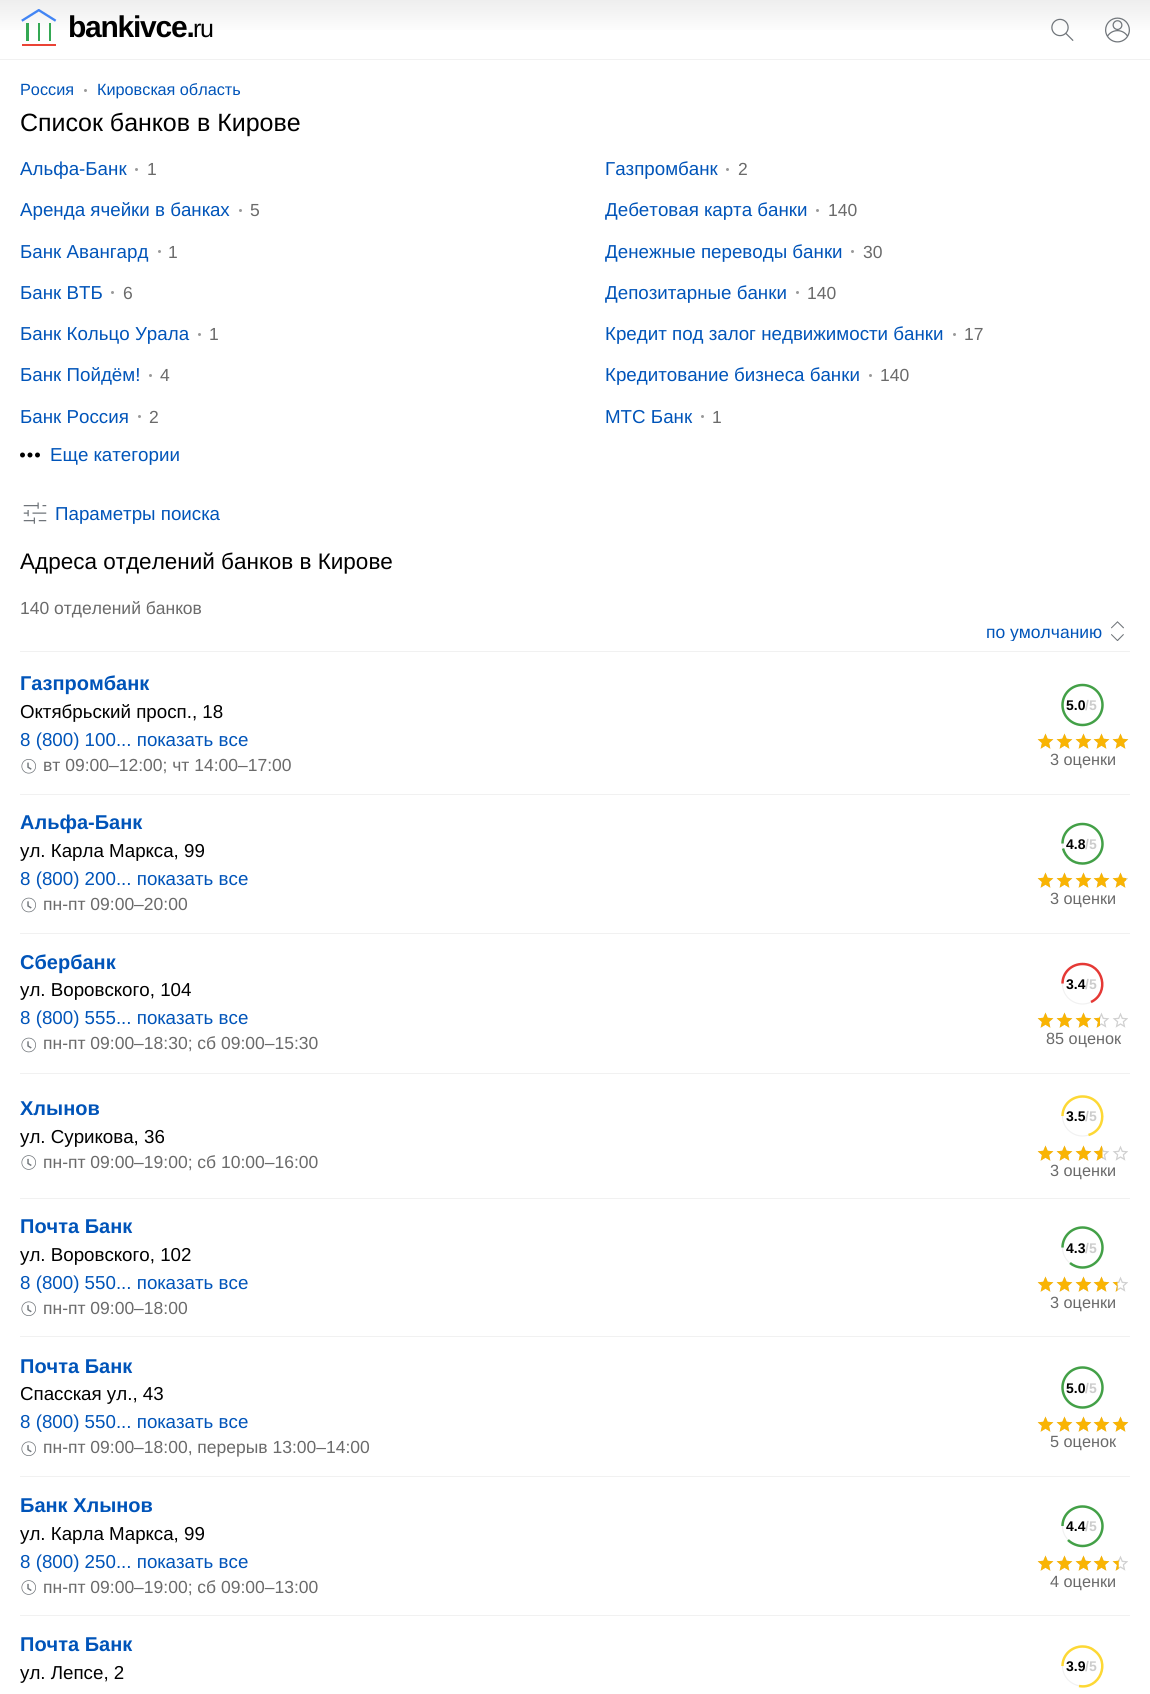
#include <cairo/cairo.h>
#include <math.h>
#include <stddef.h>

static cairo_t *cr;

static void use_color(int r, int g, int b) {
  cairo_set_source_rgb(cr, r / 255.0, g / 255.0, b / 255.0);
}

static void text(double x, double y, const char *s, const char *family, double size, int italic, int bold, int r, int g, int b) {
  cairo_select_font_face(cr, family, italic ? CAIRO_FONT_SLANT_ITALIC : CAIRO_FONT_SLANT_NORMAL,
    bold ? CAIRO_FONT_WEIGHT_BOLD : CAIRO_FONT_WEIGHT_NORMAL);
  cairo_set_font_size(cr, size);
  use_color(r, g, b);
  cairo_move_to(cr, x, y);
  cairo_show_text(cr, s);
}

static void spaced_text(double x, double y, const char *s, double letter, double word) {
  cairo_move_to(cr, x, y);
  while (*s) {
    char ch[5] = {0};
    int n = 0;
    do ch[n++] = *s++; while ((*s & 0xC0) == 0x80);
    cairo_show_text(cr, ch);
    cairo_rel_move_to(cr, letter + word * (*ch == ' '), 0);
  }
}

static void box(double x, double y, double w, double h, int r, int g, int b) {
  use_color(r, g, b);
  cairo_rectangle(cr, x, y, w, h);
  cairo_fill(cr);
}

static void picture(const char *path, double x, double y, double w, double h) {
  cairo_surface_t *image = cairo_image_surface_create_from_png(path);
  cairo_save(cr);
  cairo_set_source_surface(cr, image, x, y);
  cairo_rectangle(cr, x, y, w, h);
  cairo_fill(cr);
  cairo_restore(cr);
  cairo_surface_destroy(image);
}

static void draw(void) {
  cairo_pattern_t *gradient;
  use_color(255, 255, 255);
  cairo_paint(cr);
  gradient = cairo_pattern_create_linear(575, 0, 575, 59);
  cairo_pattern_add_color_stop_rgba(gradient, 0, 0.933, 0.933, 0.933, 1);
  cairo_pattern_add_color_stop_rgba(gradient, 0.6, 1, 1, 1, 1);
  cairo_set_source(cr, gradient);
  cairo_pattern_destroy(gradient);
  cairo_rectangle(cr, 0, 0, 1150, 30);
  cairo_fill(cr);
  box(0, 59, 1150, 1, 241, 241, 241);
  picture("img_01.png", 21, 9, 36, 37);
  picture("img_02.png", 1051, 18, 23, 23);
  picture("img_03.png", 1105, 17, 25, 26);
  use_color(153, 153, 153);
  cairo_arc(cr, 85.5, 90.5, 1.5, 0, 2 * M_PI);
  cairo_fill(cr);
  cairo_arc(cr, 136.5, 169.5, 1.5, 0, 2 * M_PI);
  cairo_fill(cr);
  cairo_arc(cr, 727.5, 169.5, 1.5, 0, 2 * M_PI);
  cairo_fill(cr);
  cairo_arc(cr, 240.5, 210.5, 1.5, 0, 2 * M_PI);
  cairo_fill(cr);
  cairo_arc(cr, 817.5, 210.5, 1.5, 0, 2 * M_PI);
  cairo_fill(cr);
  cairo_arc(cr, 159.5, 251.5, 1.5, 0, 2 * M_PI);
  cairo_fill(cr);
  cairo_arc(cr, 852.5, 251.5, 1.5, 0, 2 * M_PI);
  cairo_fill(cr);
  cairo_arc(cr, 112.5, 292.5, 1.5, 0, 2 * M_PI);
  cairo_fill(cr);
  cairo_arc(cr, 797.5, 292.5, 1.5, 0, 2 * M_PI);
  cairo_fill(cr);
  cairo_arc(cr, 199.5, 334.5, 1.5, 0, 2 * M_PI);
  cairo_fill(cr);
  cairo_arc(cr, 954.5, 334.5, 1.5, 0, 2 * M_PI);
  cairo_fill(cr);
  cairo_arc(cr, 150.5, 375.5, 1.5, 0, 2 * M_PI);
  cairo_fill(cr);
  cairo_arc(cr, 870.5, 375.5, 1.5, 0, 2 * M_PI);
  cairo_fill(cr);
  cairo_arc(cr, 139.5, 416.5, 1.5, 0, 2 * M_PI);
  cairo_fill(cr);
  cairo_arc(cr, 702.5, 416.5, 1.5, 0, 2 * M_PI);
  cairo_fill(cr);
  picture("img_04.png", 20, 452, 20, 6);
  picture("img_05.png", 23, 502, 24, 22);
  box(20, 651, 1110, 1, 241, 241, 241);
  picture("img_06.png", 1111, 621, 13, 20);
  picture("img_07.png", 21, 759, 15, 15);
  cairo_arc(cr, 1082.5, 705, 20, 0, 2 * M_PI);
  cairo_set_line_width(cr, 1.2);
  cairo_stroke(cr);
  cairo_arc(cr, 1082.5, 705, 20, 0, 2 * M_PI);
  use_color(67, 160, 71);
  cairo_set_line_width(cr, 2.5);
  cairo_stroke(cr);
  picture("img_08.png", 1038, 733, 90, 16);
  picture("img_09.png", 1037, 733, 92, 16);
  box(20, 794, 1110, 1, 241, 241, 241);
  picture("img_10.png", 21, 897, 15, 16);
  cairo_arc(cr, 1082.5, 844, 20, 0, 2 * M_PI);
  cairo_set_line_width(cr, 1.2);
  cairo_stroke(cr);
  cairo_new_path(cr);
  cairo_move_to(cr, 1082.5, 824);
  cairo_curve_to(cr, 1093.5, 824, 1102.5, 833, 1102.5, 844);
  cairo_curve_to(cr, 1102.5, 854.5, 1093.5, 863.5, 1082.5, 863.5);
  cairo_curve_to(cr, 1073, 863.5, 1065.5, 857.5, 1063, 848.5);
  cairo_move_to(cr, 1062.5, 843.5);
  cairo_curve_to(cr, 1062.5, 832.5, 1071.5, 824, 1082.5, 824);
  use_color(67, 160, 71);
  cairo_set_line_width(cr, 2.5);
  cairo_stroke(cr);
  picture("img_08.png", 1038, 872, 90, 16);
  picture("img_11.png", 1037, 872, 90, 16);
  box(20, 933, 1110, 1, 241, 241, 241);
  picture("img_10.png", 21, 1037, 15, 16);
  cairo_arc(cr, 1082.5, 984, 20, 0, 2 * M_PI);
  cairo_set_line_width(cr, 1.2);
  cairo_stroke(cr);
  cairo_new_path(cr);
  cairo_move_to(cr, 1082.5, 964);
  cairo_curve_to(cr, 1103.5, 964, 1110, 993, 1091, 1002);
  cairo_move_to(cr, 1062.5, 983.5);
  cairo_curve_to(cr, 1062.5, 972.5, 1071.5, 964, 1082.5, 964);
  use_color(229, 57, 53);
  cairo_set_line_width(cr, 2.5);
  cairo_stroke(cr);
  picture("img_08.png", 1038, 1012, 90, 16);
  picture("img_12.png", 1037, 1012, 63, 16);
  box(20, 1073, 1110, 1, 241, 241, 241);
  picture("img_13.png", 21, 1155, 15, 15);
  cairo_arc(cr, 1082.5, 1116, 20, 0, 2 * M_PI);
  cairo_set_line_width(cr, 1.2);
  cairo_stroke(cr);
  cairo_new_path(cr);
  cairo_move_to(cr, 1082.5, 1096.5);
  cairo_curve_to(cr, 1105, 1096.5, 1110, 1128.5, 1088.5, 1135);
  cairo_move_to(cr, 1062.5, 1116);
  cairo_curve_to(cr, 1062.5, 1105, 1071.5, 1096.5, 1082.5, 1096.5);
  use_color(253, 216, 53);
  cairo_set_line_width(cr, 2.5);
  cairo_stroke(cr);
  picture("img_08.png", 1038, 1145, 90, 16);
  picture("img_14.png", 1037, 1145, 66, 16);
  box(20, 1198, 1110, 1, 241, 241, 241);
  picture("img_15.png", 21, 1301, 15, 15);
  cairo_arc(cr, 1082.5, 1247.5, 20, 0, 2 * M_PI);
  cairo_set_line_width(cr, 1.2);
  cairo_stroke(cr);
  cairo_new_path(cr);
  cairo_move_to(cr, 1082.5, 1227.5);
  cairo_curve_to(cr, 1093.5, 1227.5, 1102.5, 1236.5, 1102.5, 1247.5);
  cairo_curve_to(cr, 1102.5, 1258.5, 1093.5, 1267.5, 1082.5, 1267.5);
  cairo_curve_to(cr, 1077.5, 1267.5, 1073, 1265.5, 1070, 1263);
  cairo_move_to(cr, 1062.5, 1247.5);
  cairo_curve_to(cr, 1062.5, 1236.5, 1071.5, 1227.5, 1082.5, 1227.5);
  use_color(67, 160, 71);
  cairo_set_line_width(cr, 2.5);
  cairo_stroke(cr);
  picture("img_08.png", 1038, 1276, 90, 16);
  picture("img_16.png", 1037, 1276, 81, 16);
  box(20, 1336, 1110, 1, 241, 241, 241);
  picture("img_15.png", 21, 1441, 15, 15);
  cairo_arc(cr, 1082.5, 1387.5, 20, 0, 2 * M_PI);
  cairo_set_line_width(cr, 1.2);
  cairo_stroke(cr);
  cairo_arc(cr, 1082.5, 1387.5, 20, 0, 2 * M_PI);
  use_color(67, 160, 71);
  cairo_set_line_width(cr, 2.5);
  cairo_stroke(cr);
  picture("img_08.png", 1038, 1416, 90, 16);
  picture("img_09.png", 1037, 1416, 92, 16);
  box(20, 1476, 1110, 1, 241, 241, 241);
  picture("img_13.png", 21, 1580, 15, 15);
  cairo_arc(cr, 1082.5, 1526, 20, 0, 2 * M_PI);
  cairo_set_line_width(cr, 1.2);
  cairo_stroke(cr);
  cairo_new_path(cr);
  cairo_move_to(cr, 1082.5, 1506.5);
  cairo_curve_to(cr, 1093.5, 1506.5, 1102.5, 1515.5, 1102.5, 1526);
  cairo_curve_to(cr, 1102.5, 1537, 1093.5, 1546, 1082.5, 1546);
  cairo_curve_to(cr, 1077, 1546, 1071.5, 1543.5, 1068, 1540);
  cairo_move_to(cr, 1062.5, 1526);
  cairo_curve_to(cr, 1062.5, 1515, 1071.5, 1506.5, 1082.5, 1506.5);
  use_color(67, 160, 71);
  cairo_set_line_width(cr, 2.5);
  cairo_stroke(cr);
  picture("img_08.png", 1038, 1555, 90, 16);
  picture("img_17.png", 1037, 1555, 82, 16);
  box(20, 1615, 1110, 1, 241, 241, 241);
  cairo_arc(cr, 1082.5, 1666, 20, 0, 2 * M_PI);
  cairo_set_line_width(cr, 1.2);
  cairo_stroke(cr);
  cairo_new_path(cr);
  cairo_move_to(cr, 1082.5, 1646.5);
  cairo_curve_to(cr, 1086.5, 1646.5, 1090.5, 1647.5, 1093.5, 1650);
  cairo_curve_to(cr, 1111.5, 1662, 1099.5, 1690, 1079, 1686);
  cairo_move_to(cr, 1062.5, 1666);
  cairo_curve_to(cr, 1062.5, 1655, 1071.5, 1646.5, 1082.5, 1646.5);
  use_color(253, 216, 53);
  cairo_set_line_width(cr, 2.5);
  cairo_stroke(cr);
  cairo_select_font_face(cr, "Liberation Sans", CAIRO_FONT_SLANT_NORMAL, CAIRO_FONT_WEIGHT_BOLD);
  cairo_set_font_size(cr, 30);
  use_color(0, 0, 0);
  spaced_text(68, 37, "bankivce.", -1.25, 0);
  cairo_select_font_face(cr, "Liberation Sans", CAIRO_FONT_SLANT_NORMAL, CAIRO_FONT_WEIGHT_NORMAL);
  cairo_set_font_size(cr, 25);
  spaced_text(193, 37, "ru", -1.25, 0);
  text(20, 95, "Россия", "Liberation Sans", 16.25, 0, 0, 0, 84, 185);
  text(97, 95, "Кировская область", "Liberation Sans", 16.25, 0, 0, 0, 84, 185);
  text(20, 131, "Список банков в Кирове", "Liberation Sans", 25, 0, 0, 0, 0, 0);
  text(20, 175, "Альфа-Банк", "Liberation Sans", 18.75, 0, 0, 0, 84, 185);
  text(147, 175, "1", "Liberation Sans", 17.5, 0, 0, 106, 106, 106);
  text(605, 175, "Газпромбанк", "Liberation Sans", 18.75, 0, 0, 0, 84, 185);
  text(738, 175, "2", "Liberation Sans", 17.5, 0, 0, 106, 106, 106);
  text(20, 216, "Аренда ячейки в банках", "Liberation Sans", 18.75, 0, 0, 0, 84, 185);
  text(250, 216, "5", "Liberation Sans", 17.5, 0, 0, 106, 106, 106);
  text(605, 216, "Дебетовая карта банки", "Liberation Sans", 18.75, 0, 0, 0, 84, 185);
  text(828, 216, "140", "Liberation Sans", 17.5, 0, 0, 106, 106, 106);
  text(20, 258, "Банк Авангард", "Liberation Sans", 18.75, 0, 0, 0, 84, 185);
  text(168, 258, "1", "Liberation Sans", 17.5, 0, 0, 106, 106, 106);
  text(605, 258, "Денежные переводы банки", "Liberation Sans", 18.75, 0, 0, 0, 84, 185);
  text(863, 258, "30", "Liberation Sans", 17.5, 0, 0, 106, 106, 106);
  text(20, 299, "Банк ВТБ", "Liberation Sans", 18.75, 0, 0, 0, 84, 185);
  text(123, 299, "6", "Liberation Sans", 17.5, 0, 0, 106, 106, 106);
  text(605, 299, "Депозитарные банки", "Liberation Sans", 18.75, 0, 0, 0, 84, 185);
  text(807, 299, "140", "Liberation Sans", 17.5, 0, 0, 106, 106, 106);
  text(20, 340, "Банк Кольцо Урала", "Liberation Sans", 18.75, 0, 0, 0, 84, 185);
  text(209, 340, "1", "Liberation Sans", 17.5, 0, 0, 106, 106, 106);
  text(605, 340, "Кредит под залог недвижимости банки", "Liberation Sans", 18.75, 0, 0, 0, 84, 185);
  text(964, 340, "17", "Liberation Sans", 17.5, 0, 0, 106, 106, 106);
  text(20, 381, "Банк Пойдём!", "Liberation Sans", 18.75, 0, 0, 0, 84, 185);
  text(160, 381, "4", "Liberation Sans", 17.5, 0, 0, 106, 106, 106);
  text(605, 381, "Кредитование бизнеса банки", "Liberation Sans", 18.75, 0, 0, 0, 84, 185);
  text(880, 381, "140", "Liberation Sans", 17.5, 0, 0, 106, 106, 106);
  text(20, 423, "Банк Россия", "Liberation Sans", 18.75, 0, 0, 0, 84, 185);
  text(149, 423, "2", "Liberation Sans", 17.5, 0, 0, 106, 106, 106);
  text(605, 423, "МТС Банк", "Liberation Sans", 18.75, 0, 0, 0, 84, 185);
  text(712, 423, "1", "Liberation Sans", 17.5, 0, 0, 106, 106, 106);
  text(50, 461, "Еще категории", "Liberation Sans", 18.75, 0, 0, 0, 84, 185);
  text(55, 520, "Параметры поиска", "Liberation Sans", 18.75, 0, 0, 0, 84, 185);
  text(20, 569, "Адреса отделений банков в Кирове", "Liberation Sans", 22.5, 0, 0, 0, 0, 0);
  text(20, 614, "140 отделений банков", "Liberation Sans", 17.5, 0, 0, 106, 106, 106);
  cairo_save(cr);
  cairo_rectangle(cr, 849, 621, 254, 20);
  cairo_clip(cr);
  text(986, 638, "по умолчанию", "Liberation Sans", 17.5, 0, 0, 0, 84, 185);
  cairo_restore(cr);
  text(20, 690, "Газпромбанк", "Liberation Sans", 20, 0, 1, 0, 84, 185);
  text(20, 718, "Октябрьский просп., 18", "Liberation Sans", 18.75, 0, 0, 0, 0, 0);
  text(20, 746, "8 (800) 100... показать все", "Liberation Sans", 18.75, 0, 0, 0, 84, 185);
  text(43, 771, "вт 09:00–12:00; чт 14:00–17:00", "Liberation Sans", 17.5, 0, 0, 106, 106, 106);
  text(1066, 710, "5.0", "Liberation Sans", 14, 0, 1, 0, 0, 0);
  text(1085, 710, "/5", "Liberation Sans", 14, 0, 1, 204, 204, 204);
  text(1050, 765, "3 оценки", "Liberation Sans", 16.25, 0, 0, 106, 106, 106);
  text(20, 829, "Альфа-Банк", "Liberation Sans", 20, 0, 1, 0, 84, 185);
  text(20, 857, "ул. Карла Маркса, 99", "Liberation Sans", 18.75, 0, 0, 0, 0, 0);
  text(20, 885, "8 (800) 200... показать все", "Liberation Sans", 18.75, 0, 0, 0, 84, 185);
  text(43, 910, "пн-пт 09:00–20:00", "Liberation Sans", 17.5, 0, 0, 106, 106, 106);
  text(1066, 849, "4.8", "Liberation Sans", 14, 0, 1, 0, 0, 0);
  text(1085, 849, "/5", "Liberation Sans", 14, 0, 1, 204, 204, 204);
  text(1050, 904, "3 оценки", "Liberation Sans", 16.25, 0, 0, 106, 106, 106);
  text(20, 969, "Сбербанк", "Liberation Sans", 20, 0, 1, 0, 84, 185);
  text(20, 996, "ул. Воровского, 104", "Liberation Sans", 18.75, 0, 0, 0, 0, 0);
  text(20, 1024, "8 (800) 555... показать все", "Liberation Sans", 18.75, 0, 0, 0, 84, 185);
  text(43, 1049, "пн-пт 09:00–18:30; сб 09:00–15:30", "Liberation Sans", 17.5, 0, 0, 106, 106, 106);
  text(1066, 989, "3.4", "Liberation Sans", 14, 0, 1, 0, 0, 0);
  text(1085, 989, "/5", "Liberation Sans", 14, 0, 1, 204, 204, 204);
  text(1046, 1044, "85 оценок", "Liberation Sans", 16.25, 0, 0, 106, 106, 106);
  text(20, 1115, "Хлынов", "Liberation Sans", 20, 0, 1, 0, 84, 185);
  text(20, 1143, "ул. Сурикова, 36", "Liberation Sans", 18.75, 0, 0, 0, 0, 0);
  text(43, 1168, "пн-пт 09:00–19:00; сб 10:00–16:00", "Liberation Sans", 17.5, 0, 0, 106, 106, 106);
  text(1066, 1121, "3.5", "Liberation Sans", 14, 0, 1, 0, 0, 0);
  text(1085, 1121, "/5", "Liberation Sans", 14, 0, 1, 204, 204, 204);
  text(1050, 1176, "3 оценки", "Liberation Sans", 16.25, 0, 0, 106, 106, 106);
  text(20, 1233, "Почта Банк", "Liberation Sans", 20, 0, 1, 0, 84, 185);
  text(20, 1261, "ул. Воровского, 102", "Liberation Sans", 18.75, 0, 0, 0, 0, 0);
  text(20, 1289, "8 (800) 550... показать все", "Liberation Sans", 18.75, 0, 0, 0, 84, 185);
  text(43, 1314, "пн-пт 09:00–18:00", "Liberation Sans", 17.5, 0, 0, 106, 106, 106);
  text(1066, 1253, "4.3", "Liberation Sans", 14, 0, 1, 0, 0, 0);
  text(1085, 1253, "/5", "Liberation Sans", 14, 0, 1, 204, 204, 204);
  text(1050, 1308, "3 оценки", "Liberation Sans", 16.25, 0, 0, 106, 106, 106);
  text(20, 1373, "Почта Банк", "Liberation Sans", 20, 0, 1, 0, 84, 185);
  text(20, 1400, "Спасская ул., 43", "Liberation Sans", 18.75, 0, 0, 0, 0, 0);
  text(20, 1428, "8 (800) 550... показать все", "Liberation Sans", 18.75, 0, 0, 0, 84, 185);
  text(43, 1453, "пн-пт 09:00–18:00, перерыв 13:00–14:00", "Liberation Sans", 17.5, 0, 0, 106, 106, 106);
  text(1066, 1393, "5.0", "Liberation Sans", 14, 0, 1, 0, 0, 0);
  text(1085, 1393, "/5", "Liberation Sans", 14, 0, 1, 204, 204, 204);
  text(1050, 1447, "5 оценок", "Liberation Sans", 16.25, 0, 0, 106, 106, 106);
  text(20, 1512, "Банк Хлынов", "Liberation Sans", 20, 0, 1, 0, 84, 185);
  text(20, 1540, "ул. Карла Маркса, 99", "Liberation Sans", 18.75, 0, 0, 0, 0, 0);
  text(20, 1568, "8 (800) 250... показать все", "Liberation Sans", 18.75, 0, 0, 0, 84, 185);
  text(43, 1593, "пн-пт 09:00–19:00; сб 09:00–13:00", "Liberation Sans", 17.5, 0, 0, 106, 106, 106);
  text(1066, 1531, "4.4", "Liberation Sans", 14, 0, 1, 0, 0, 0);
  text(1085, 1531, "/5", "Liberation Sans", 14, 0, 1, 204, 204, 204);
  text(1050, 1587, "4 оценки", "Liberation Sans", 16.25, 0, 0, 106, 106, 106);
  text(20, 1651, "Почта Банк", "Liberation Sans", 20, 0, 1, 0, 84, 185);
  text(20, 1679, "ул. Лепсе, 2", "Liberation Sans", 18.75, 0, 0, 0, 0, 0);
  text(1066, 1671, "3.9", "Liberation Sans", 14, 0, 1, 0, 0, 0);
  text(1085, 1671, "/5", "Liberation Sans", 14, 0, 1, 204, 204, 204);
}

int main(void) {
  cairo_surface_t *surface = cairo_image_surface_create(CAIRO_FORMAT_RGB24, 1150, 1694);
  cr = cairo_create(surface);
  cairo_font_options_t *options = cairo_font_options_create();
  cairo_font_options_set_hint_metrics(options, CAIRO_HINT_METRICS_OFF);
  cairo_font_options_set_hint_style(options, CAIRO_HINT_STYLE_NONE);
  cairo_set_font_options(cr, options);
  cairo_set_miter_limit(cr, 4);
  draw();
  cairo_surface_write_to_png(surface, "out.png");
  cairo_font_options_destroy(options);
  cairo_destroy(cr);
  cairo_surface_destroy(surface);
  return 0;
}
